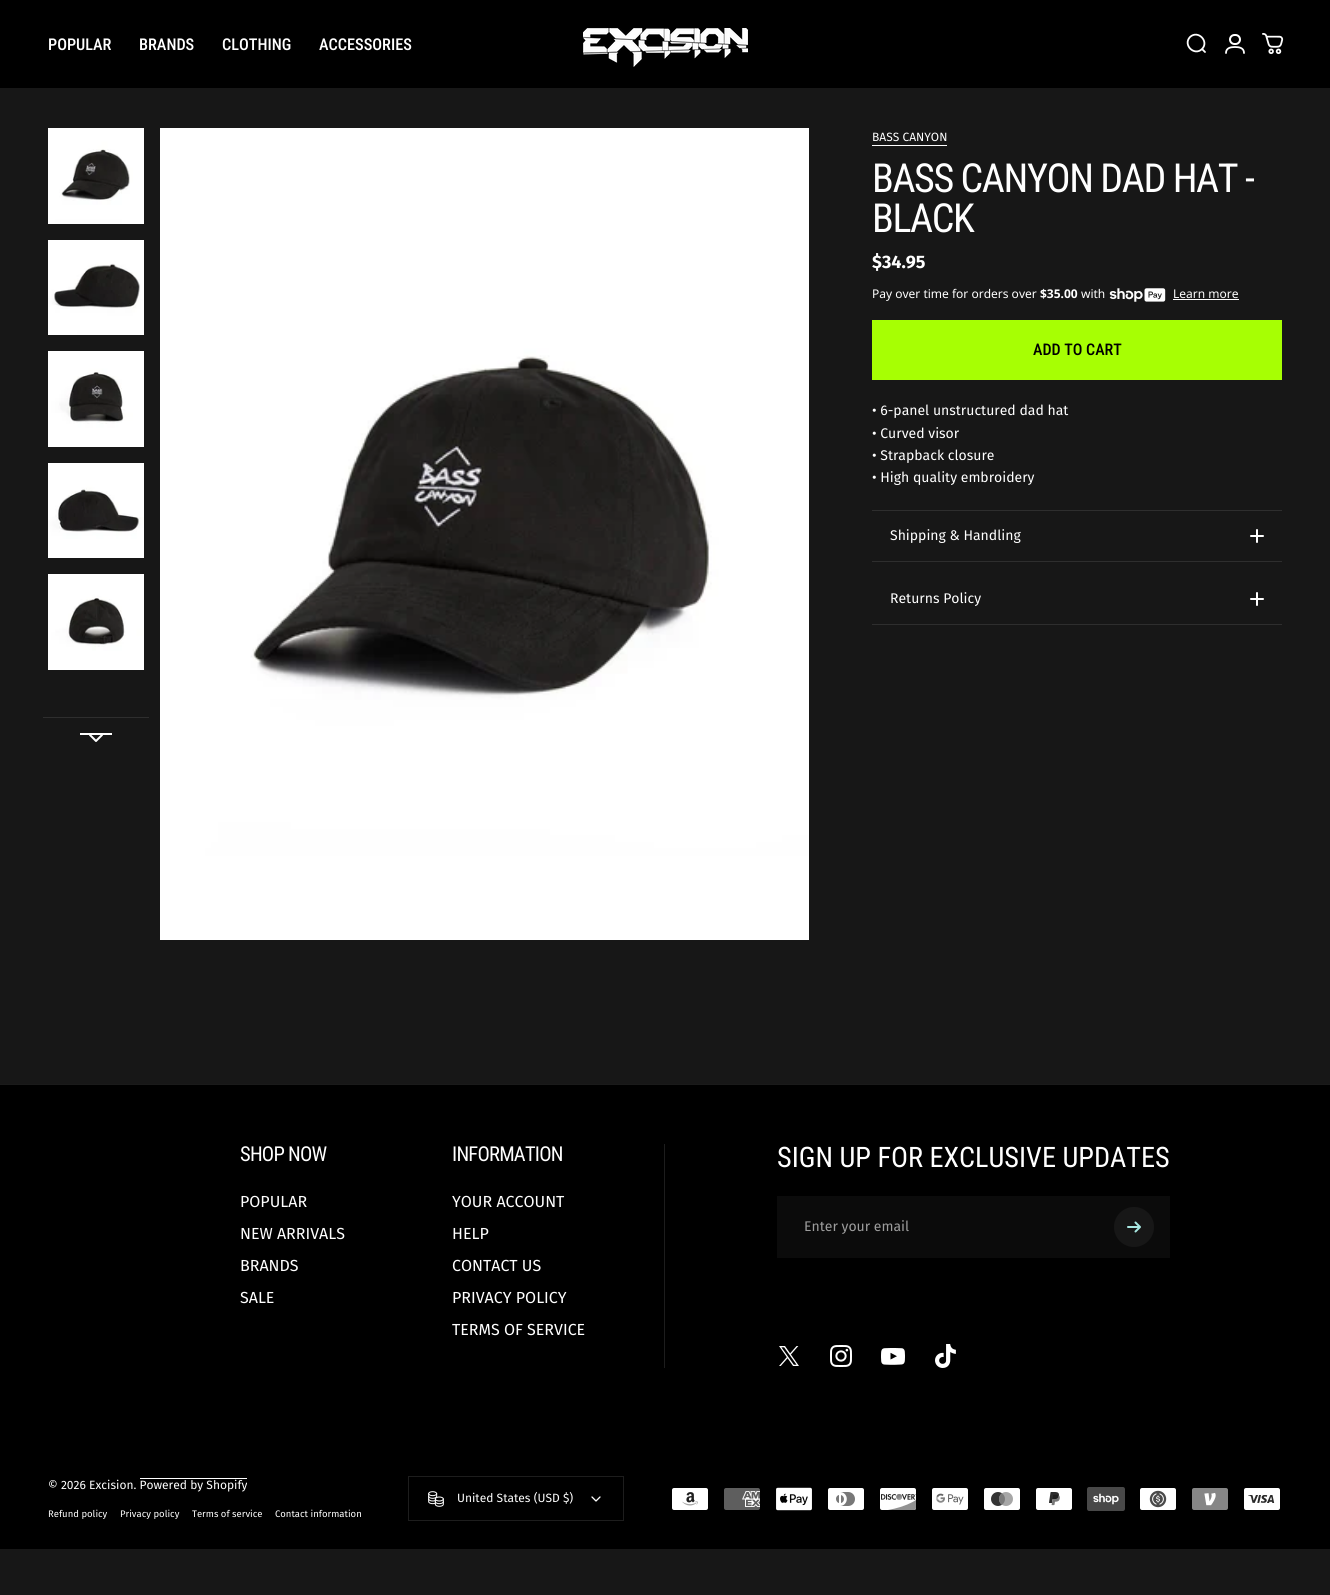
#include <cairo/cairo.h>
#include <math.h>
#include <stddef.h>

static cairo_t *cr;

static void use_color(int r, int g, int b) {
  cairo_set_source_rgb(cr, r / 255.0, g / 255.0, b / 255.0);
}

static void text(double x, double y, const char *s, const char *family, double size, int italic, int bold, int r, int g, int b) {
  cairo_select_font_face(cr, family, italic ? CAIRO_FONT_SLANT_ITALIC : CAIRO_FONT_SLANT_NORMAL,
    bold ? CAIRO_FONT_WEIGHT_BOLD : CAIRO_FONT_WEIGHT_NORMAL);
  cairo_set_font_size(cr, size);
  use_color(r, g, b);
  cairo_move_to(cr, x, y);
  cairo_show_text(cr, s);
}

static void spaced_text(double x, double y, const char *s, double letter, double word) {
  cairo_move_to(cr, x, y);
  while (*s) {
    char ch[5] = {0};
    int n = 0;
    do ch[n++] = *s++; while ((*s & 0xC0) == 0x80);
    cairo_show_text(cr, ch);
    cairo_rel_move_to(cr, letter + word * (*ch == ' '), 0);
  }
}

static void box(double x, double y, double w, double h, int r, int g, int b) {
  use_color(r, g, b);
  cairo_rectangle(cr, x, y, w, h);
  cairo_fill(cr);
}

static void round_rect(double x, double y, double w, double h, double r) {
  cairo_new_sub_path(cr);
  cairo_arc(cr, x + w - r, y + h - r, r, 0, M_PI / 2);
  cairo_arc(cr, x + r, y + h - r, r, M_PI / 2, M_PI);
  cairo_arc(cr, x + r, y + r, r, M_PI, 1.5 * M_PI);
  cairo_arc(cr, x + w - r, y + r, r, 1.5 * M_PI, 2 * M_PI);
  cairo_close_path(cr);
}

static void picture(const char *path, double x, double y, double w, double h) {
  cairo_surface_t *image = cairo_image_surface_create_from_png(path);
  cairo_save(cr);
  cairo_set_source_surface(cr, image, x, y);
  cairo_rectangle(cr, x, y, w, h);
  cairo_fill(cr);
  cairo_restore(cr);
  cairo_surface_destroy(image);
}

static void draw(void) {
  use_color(23, 23, 23);
  cairo_paint(cr);
  box(0, 0, 1330, 88, 0, 0, 0);
  picture("img_01.png", 583, 28, 165, 39);
  cairo_new_path(cr);
  cairo_move_to(cr, 1205, 52);
  cairo_line_to(cr, 1202, 49);
  cairo_move_to(cr, 1202, 49);
  cairo_curve_to(cr, 1209.5, 41.5, 1198, 29.5, 1190, 37);
  cairo_curve_to(cr, 1182.5, 45, 1194.5, 56.5, 1202, 49);
  cairo_close_path(cr);
  use_color(255, 255, 255);
  cairo_set_line_width(cr, 1.8);
  cairo_set_line_cap(cr, CAIRO_LINE_CAP_ROUND);
  cairo_stroke(cr);
  round_rect(1230, 35, 10, 9, 4.5);
  cairo_set_line_width(cr, 2);
  cairo_set_line_cap(cr, CAIRO_LINE_CAP_BUTT);
  cairo_stroke(cr);
  cairo_new_path(cr);
  cairo_move_to(cr, 1235, 47);
  cairo_curve_to(cr, 1239.5, 47, 1244, 48, 1244, 53);
  cairo_move_to(cr, 1235, 47);
  cairo_curve_to(cr, 1230.5, 47, 1226, 48, 1226, 53);
  cairo_set_line_width(cr, 1.8);
  cairo_set_line_cap(cr, CAIRO_LINE_CAP_ROUND);
  cairo_stroke(cr);
  picture("img_02.png", 1262, 33, 22, 22);
  picture("img_03.png", 48, 128, 96, 96);
  picture("img_04.png", 48, 240, 96, 95);
  picture("img_05.png", 48, 351, 96, 96);
  picture("img_06.png", 48, 463, 96, 95);
  picture("img_07.png", 48, 574, 96, 96);
  cairo_new_path(cr);
  cairo_move_to(cr, 90, 735);
  cairo_line_to(cr, 96, 741);
  cairo_line_to(cr, 102, 735);
  cairo_set_line_width(cr, 2);
  cairo_set_line_join(cr, CAIRO_LINE_JOIN_ROUND);
  cairo_stroke(cr);
  box(80, 733, 32, 2, 255, 255, 255);
  box(43, 717, 106, 1, 46, 46, 46);
  picture("img_08.png", 160, 128, 649, 812);
  box(872, 145, 75, 1, 255, 255, 255);
  picture("img_09.png", 1109, 288, 57, 14);
  box(1173, 299, 66, 1, 255, 255, 255);
  box(872, 320, 410, 60, 167, 255, 3);
  box(872, 510, 410, 1, 46, 46, 46);
  box(872, 561, 410, 1, 46, 46, 46);
  cairo_new_path(cr);
  cairo_move_to(cr, 1257, 530);
  cairo_line_to(cr, 1257, 542);
  cairo_move_to(cr, 1263, 536);
  cairo_line_to(cr, 1251, 536);
  use_color(255, 255, 255);
  cairo_stroke(cr);
  box(872, 624, 410, 1, 46, 46, 46);
  cairo_new_path(cr);
  cairo_move_to(cr, 1257, 593);
  cairo_line_to(cr, 1257, 605);
  cairo_move_to(cr, 1263, 599);
  cairo_line_to(cr, 1251, 599);
  use_color(255, 255, 255);
  cairo_stroke(cr);
  box(0, 1084, 1330, 1, 26, 26, 26);
  box(0, 1085, 1330, 464, 0, 0, 0);
  box(664, 1144, 1, 224, 29, 29, 29);
  box(777, 1196, 393, 62, 11, 11, 11);
  use_color(23, 23, 23);
  cairo_arc(cr, 1134, 1227, 20, 0, 2 * M_PI);
  cairo_fill(cr);
  cairo_new_path(cr);
  cairo_move_to(cr, 1128, 1227);
  cairo_line_to(cr, 1140, 1227);
  cairo_move_to(cr, 1140, 1227);
  cairo_line_to(cr, 1135.5, 1222.5);
  cairo_move_to(cr, 1140, 1227);
  cairo_line_to(cr, 1135.5, 1231.5);
  use_color(168, 232, 226);
  cairo_stroke(cr);
  picture("img_10.png", 779, 1346, 20, 20);
  picture("img_11.png", 830, 1345, 22, 22);
  picture("img_12.png", 881, 1348, 24, 17);
  picture("img_13.png", 935, 1344, 21, 24);
  box(140, 1478, 107, 1, 255, 255, 255);
  cairo_rectangle(cr, 408.5, 1476.5, 215, 44);
  use_color(29, 29, 29);
  cairo_set_line_width(cr, 1);
  cairo_set_line_cap(cr, CAIRO_LINE_CAP_BUTT);
  cairo_set_line_join(cr, CAIRO_LINE_JOIN_MITER);
  cairo_stroke(cr);
  picture("img_14.png", 428, 1491, 16, 16);
  cairo_new_path(cr);
  cairo_move_to(cr, 592, 1497);
  cairo_line_to(cr, 596, 1501);
  cairo_line_to(cr, 600, 1497);
  use_color(255, 255, 255);
  cairo_set_line_width(cr, 1.3);
  cairo_set_line_cap(cr, CAIRO_LINE_CAP_ROUND);
  cairo_set_line_join(cr, CAIRO_LINE_JOIN_ROUND);
  cairo_stroke(cr);
  picture("img_15.png", 672, 1488, 36, 22);
  picture("img_16.png", 724, 1488, 36, 22);
  picture("img_17.png", 776, 1487, 36, 24);
  picture("img_18.png", 828, 1488, 36, 22);
  picture("img_19.png", 880, 1488, 36, 22);
  picture("img_20.png", 932, 1488, 36, 22);
  picture("img_21.png", 984, 1488, 36, 22);
  picture("img_22.png", 1036, 1488, 36, 22);
  picture("img_23.png", 1087, 1487, 38, 24);
  picture("img_24.png", 1140, 1488, 36, 22);
  picture("img_25.png", 1192, 1488, 36, 22);
  picture("img_26.png", 1244, 1488, 36, 22);
  text(48, 50, "POPULAR", "Roboto Condensed Medium", 16.25, 0, 0, 255, 255, 255);
  text(139, 50, "BRANDS", "Roboto Condensed Medium", 16.25, 0, 0, 255, 255, 255);
  text(222, 50, "CLOTHING", "Roboto Condensed Medium", 16.25, 0, 0, 255, 255, 255);
  text(319, 50, "ACCESSORIES", "Roboto Condensed Medium", 16.25, 0, 0, 255, 255, 255);
  text(872, 141, "BASS CANYON", "Fira Sans", 12, 0, 0, 255, 255, 255);
  cairo_select_font_face(cr, "Roboto Condensed", CAIRO_FONT_SLANT_NORMAL, CAIRO_FONT_WEIGHT_NORMAL);
  cairo_set_font_size(cr, 40);
  spaced_text(872, 192, "BASS CANYON DAD HAT -", -1.4, 0);
  spaced_text(872, 232, "BLACK", -1.4, 0);
  text(872, 268, "$34.95", "Fira Sans", 18, 0, 1, 255, 255, 255);
  text(872, 298, "Pay over time for orders over", "Noto Sans", 12, 0, 0, 255, 255, 255);
  text(1040, 298, "$35.00", "Noto Sans", 12, 0, 1, 255, 255, 255);
  text(1081, 298, "with", "Noto Sans", 12, 0, 0, 255, 255, 255);
  text(1173, 298, "Learn more", "Noto Sans", 12, 0, 0, 255, 255, 255);
  text(1033, 355, "ADD TO CART", "Roboto Condensed Medium", 16, 0, 0, 0, 0, 0);
  text(872, 415, "• 6-panel unstructured dad hat", "Fira Sans", 14, 0, 0, 255, 255, 255);
  text(872, 438, "• Curved visor", "Fira Sans", 14, 0, 0, 255, 255, 255);
  text(872, 460, "• Strapback closure", "Fira Sans", 14, 0, 0, 255, 255, 255);
  text(872, 482, "• High quality embroidery", "Fira Sans", 14, 0, 0, 255, 255, 255);
  text(890, 540, "Shipping & Handling", "Fira Sans", 14, 0, 0, 255, 255, 255);
  text(890, 603, "Returns Policy", "Fira Sans", 14, 0, 0, 255, 255, 255);
  cairo_select_font_face(cr, "Roboto Condensed", CAIRO_FONT_SLANT_NORMAL, CAIRO_FONT_WEIGHT_NORMAL);
  cairo_set_font_size(cr, 20.5);
  spaced_text(240, 1161, "SHOP NOW", -0.75, 0);
  text(240, 1207, "POPULAR", "Fira Sans", 16, 0, 0, 255, 255, 255);
  text(240, 1239, "NEW ARRIVALS", "Fira Sans", 16, 0, 0, 255, 255, 255);
  text(240, 1271, "BRANDS", "Fira Sans", 16, 0, 0, 255, 255, 255);
  text(240, 1303, "SALE", "Fira Sans", 16, 0, 0, 255, 255, 255);
  cairo_select_font_face(cr, "Roboto Condensed", CAIRO_FONT_SLANT_NORMAL, CAIRO_FONT_WEIGHT_NORMAL);
  cairo_set_font_size(cr, 20.5);
  spaced_text(452, 1161, "INFORMATION", -0.75, 0);
  text(452, 1207, "YOUR ACCOUNT", "Fira Sans", 16, 0, 0, 255, 255, 255);
  text(452, 1239, "HELP", "Fira Sans", 16, 0, 0, 255, 255, 255);
  text(452, 1271, "CONTACT US", "Fira Sans", 16, 0, 0, 255, 255, 255);
  text(452, 1303, "PRIVACY POLICY", "Fira Sans", 16, 0, 0, 255, 255, 255);
  text(452, 1335, "TERMS OF SERVICE", "Fira Sans", 16, 0, 0, 255, 255, 255);
  text(777, 1167, "SIGN UP FOR EXCLUSIVE UPDATES", "Roboto Condensed", 28.25, 0, 0, 255, 255, 255);
  text(804, 1231, "Enter your email", "Fira Sans", 14, 0, 0, 157, 157, 157);
  text(48, 1489, "© 2026 Excision. Powered by Shopify", "Fira Sans", 12, 0, 0, 255, 255, 255);
  text(48, 1517, "Refund policy", "Fira Sans", 9.5, 0, 0, 255, 255, 255);
  text(120, 1517, "Privacy policy", "Fira Sans", 9.5, 0, 0, 255, 255, 255);
  text(192, 1517, "Terms of service", "Fira Sans", 9.5, 0, 0, 255, 255, 255);
  text(275, 1517, "Contact information", "Fira Sans", 9.5, 0, 0, 255, 255, 255);
  text(457, 1502, "United States (USD $)", "Fira Sans", 12, 0, 0, 255, 255, 255);
}

int main(void) {
  cairo_surface_t *surface = cairo_image_surface_create(CAIRO_FORMAT_RGB24, 1330, 1595);
  cr = cairo_create(surface);
  cairo_font_options_t *options = cairo_font_options_create();
  cairo_font_options_set_hint_metrics(options, CAIRO_HINT_METRICS_OFF);
  cairo_font_options_set_hint_style(options, CAIRO_HINT_STYLE_NONE);
  cairo_set_font_options(cr, options);
  cairo_set_miter_limit(cr, 4);
  draw();
  cairo_surface_write_to_png(surface, "out.png");
  cairo_font_options_destroy(options);
  cairo_destroy(cr);
  cairo_surface_destroy(surface);
  return 0;
}
